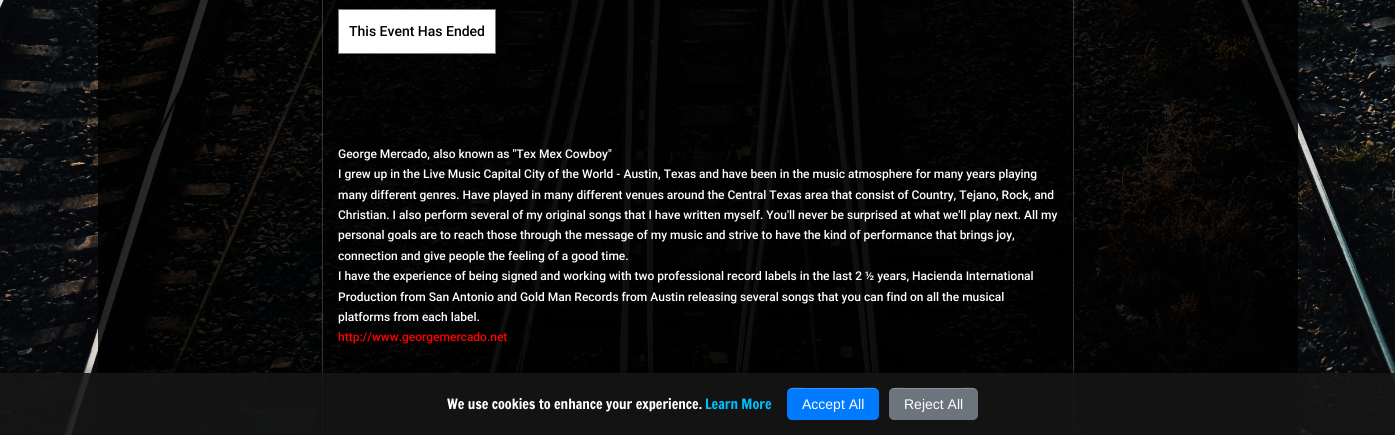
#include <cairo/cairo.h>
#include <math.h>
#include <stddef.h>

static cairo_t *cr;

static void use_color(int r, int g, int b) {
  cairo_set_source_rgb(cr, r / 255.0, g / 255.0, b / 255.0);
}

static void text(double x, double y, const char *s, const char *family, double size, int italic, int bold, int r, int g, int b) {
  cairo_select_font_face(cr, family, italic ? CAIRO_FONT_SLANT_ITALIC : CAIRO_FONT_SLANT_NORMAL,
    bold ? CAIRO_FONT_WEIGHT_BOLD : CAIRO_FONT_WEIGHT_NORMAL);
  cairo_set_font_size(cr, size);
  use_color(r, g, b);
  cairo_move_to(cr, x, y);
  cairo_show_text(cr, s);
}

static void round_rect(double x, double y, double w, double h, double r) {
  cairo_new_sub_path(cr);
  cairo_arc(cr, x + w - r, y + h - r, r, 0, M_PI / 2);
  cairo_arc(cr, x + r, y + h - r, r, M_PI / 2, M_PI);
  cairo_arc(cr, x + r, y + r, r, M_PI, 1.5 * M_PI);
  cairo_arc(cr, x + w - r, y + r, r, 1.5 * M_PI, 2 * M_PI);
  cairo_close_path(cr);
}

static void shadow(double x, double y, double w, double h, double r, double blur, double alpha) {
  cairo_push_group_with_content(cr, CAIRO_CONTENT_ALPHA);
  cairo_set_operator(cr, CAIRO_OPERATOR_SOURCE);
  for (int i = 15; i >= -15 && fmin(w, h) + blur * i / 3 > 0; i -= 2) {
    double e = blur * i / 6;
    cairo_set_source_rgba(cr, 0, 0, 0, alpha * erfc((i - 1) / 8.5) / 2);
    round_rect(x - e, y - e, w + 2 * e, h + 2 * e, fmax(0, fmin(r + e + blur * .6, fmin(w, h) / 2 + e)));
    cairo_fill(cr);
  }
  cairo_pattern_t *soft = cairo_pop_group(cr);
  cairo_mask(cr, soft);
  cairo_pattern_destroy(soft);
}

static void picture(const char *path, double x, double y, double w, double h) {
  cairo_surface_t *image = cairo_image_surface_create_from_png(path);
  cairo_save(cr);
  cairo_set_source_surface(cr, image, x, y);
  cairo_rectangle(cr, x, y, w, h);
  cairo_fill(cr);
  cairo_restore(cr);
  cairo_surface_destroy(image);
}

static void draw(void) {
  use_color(255, 255, 255);
  cairo_paint(cr);
  picture("img_01.png", 0, 0, 1395, 435);
  cairo_set_source_rgba(cr, 0, 0, 0, 0.83);
  cairo_rectangle(cr, 98, 0, 1200, 435);
  cairo_fill(cr);
  cairo_set_source_rgba(cr, 0, 0, 0, 0.6);
  cairo_rectangle(cr, 322, 0, 752, 435);
  cairo_fill(cr);
  cairo_rectangle(cr, 322.5, -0.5, 751, 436);
  cairo_set_source_rgba(cr, 1, 1, 1, 0.2);
  cairo_set_line_width(cr, 1);
  cairo_stroke(cr);
  use_color(255, 255, 255);
  cairo_rectangle(cr, 338.5, 9.5, 157, 44);
  cairo_fill_preserve(cr);
  use_color(120, 120, 120);
  cairo_stroke(cr);
  cairo_save(cr);
  cairo_rectangle(cr, 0, 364, 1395, 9);
  cairo_clip(cr);
  use_color(0, 0, 0);
  shadow(0, 369, 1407, 62, 0, 4, 0.2);
  cairo_restore(cr);
  cairo_set_source_rgba(cr, 0.086, 0.086, 0.086, 0.9);
  cairo_rectangle(cr, 0, 373, 1395, 62);
  cairo_fill(cr);
  use_color(0, 123, 255);
  round_rect(787, 388, 92, 32, 5);
  cairo_fill(cr);
  cairo_set_source_rgba(cr, 1, 1, 1, 0.2);
  cairo_new_path(cr);
  cairo_move_to(cr, 792, 389);
  cairo_line_to(cr, 874, 389);
  cairo_curve_to(cr, 877, 389, 879, 391, 879, 394);
  cairo_curve_to(cr, 879, 385, 866, 388, 860, 388);
  cairo_line_to(cr, 806, 388);
  cairo_curve_to(cr, 800, 388, 787, 385, 787, 394);
  cairo_curve_to(cr, 787, 391, 789, 389, 792, 389);
  cairo_close_path(cr);
  cairo_fill(cr);
  use_color(108, 117, 125);
  round_rect(889, 388, 89, 32, 5);
  cairo_fill(cr);
  cairo_set_source_rgba(cr, 1, 1, 1, 0.2);
  cairo_new_path(cr);
  cairo_move_to(cr, 894, 389);
  cairo_line_to(cr, 973, 389);
  cairo_curve_to(cr, 976, 389, 978, 391, 978, 394);
  cairo_curve_to(cr, 978, 385, 965, 388, 960, 388);
  cairo_line_to(cr, 907, 388);
  cairo_curve_to(cr, 902, 388, 889, 385, 889, 394);
  cairo_curve_to(cr, 889, 391, 891, 389, 894, 389);
  cairo_close_path(cr);
  cairo_fill(cr);
  text(349, 36, "This Event Has Ended", "Roboto Medium", 14, 0, 0, 0, 0, 0);
  text(338, 158, "George Mercado, also known as \"Tex Mex Cowboy\"", "Roboto Medium", 12, 0, 0, 255, 255, 255);
  text(338, 178, "I grew up in the Live Music Capital City of the World - Austin, Texas and have been in the music atmosphere for many years playing", "Roboto Medium", 12, 0, 0, 255, 255, 255);
  text(338, 199, "many different genres. Have played in many different venues around the Central Texas area that consist of Country, Tejano, Rock, and", "Roboto Medium", 12, 0, 0, 255, 255, 255);
  text(338, 219, "Christian. I also perform several of my original songs that I have written myself. You'll never be surprised at what we'll play next. All my", "Roboto Medium", 12, 0, 0, 255, 255, 255);
  text(338, 239, "personal goals are to reach those through the message of my music and strive to have the kind of performance that brings joy,", "Roboto Medium", 12, 0, 0, 255, 255, 255);
  text(338, 260, "connection and give people the feeling of a good time.", "Roboto Medium", 12, 0, 0, 255, 255, 255);
  text(338, 280, "I have the experience of being signed and working with two professional record labels in the last 2 ½ years, Hacienda International", "Roboto Medium", 12, 0, 0, 255, 255, 255);
  text(338, 301, "Production from San Antonio and Gold Man Records from Austin releasing several songs that you can find on all the musical", "Roboto Medium", 12, 0, 0, 255, 255, 255);
  text(338, 321, "platforms from each label.", "Roboto Medium", 12, 0, 0, 255, 255, 255);
  text(338, 341, "http://www.georgemercado.net", "Roboto Medium", 12, 0, 0, 255, 0, 0);
  text(447, 409, "We use cookies to enhance your experience.", "Francois One", 14, 0, 0, 255, 255, 255);
  text(705, 409, "Learn More", "Francois One", 14, 0, 0, 0, 191, 255);
  text(802, 409, "Accept All", "Liberation Sans", 14, 0, 0, 255, 255, 255);
  text(904, 409, "Reject All", "Liberation Sans", 14, 0, 0, 255, 255, 255);
}

int main(void) {
  cairo_surface_t *surface = cairo_image_surface_create(CAIRO_FORMAT_RGB24, 1395, 435);
  cr = cairo_create(surface);
  cairo_font_options_t *options = cairo_font_options_create();
  cairo_font_options_set_hint_metrics(options, CAIRO_HINT_METRICS_OFF);
  cairo_font_options_set_hint_style(options, CAIRO_HINT_STYLE_NONE);
  cairo_set_font_options(cr, options);
  cairo_set_miter_limit(cr, 4);
  draw();
  cairo_surface_write_to_png(surface, "out.png");
  cairo_font_options_destroy(options);
  cairo_destroy(cr);
  cairo_surface_destroy(surface);
  return 0;
}
